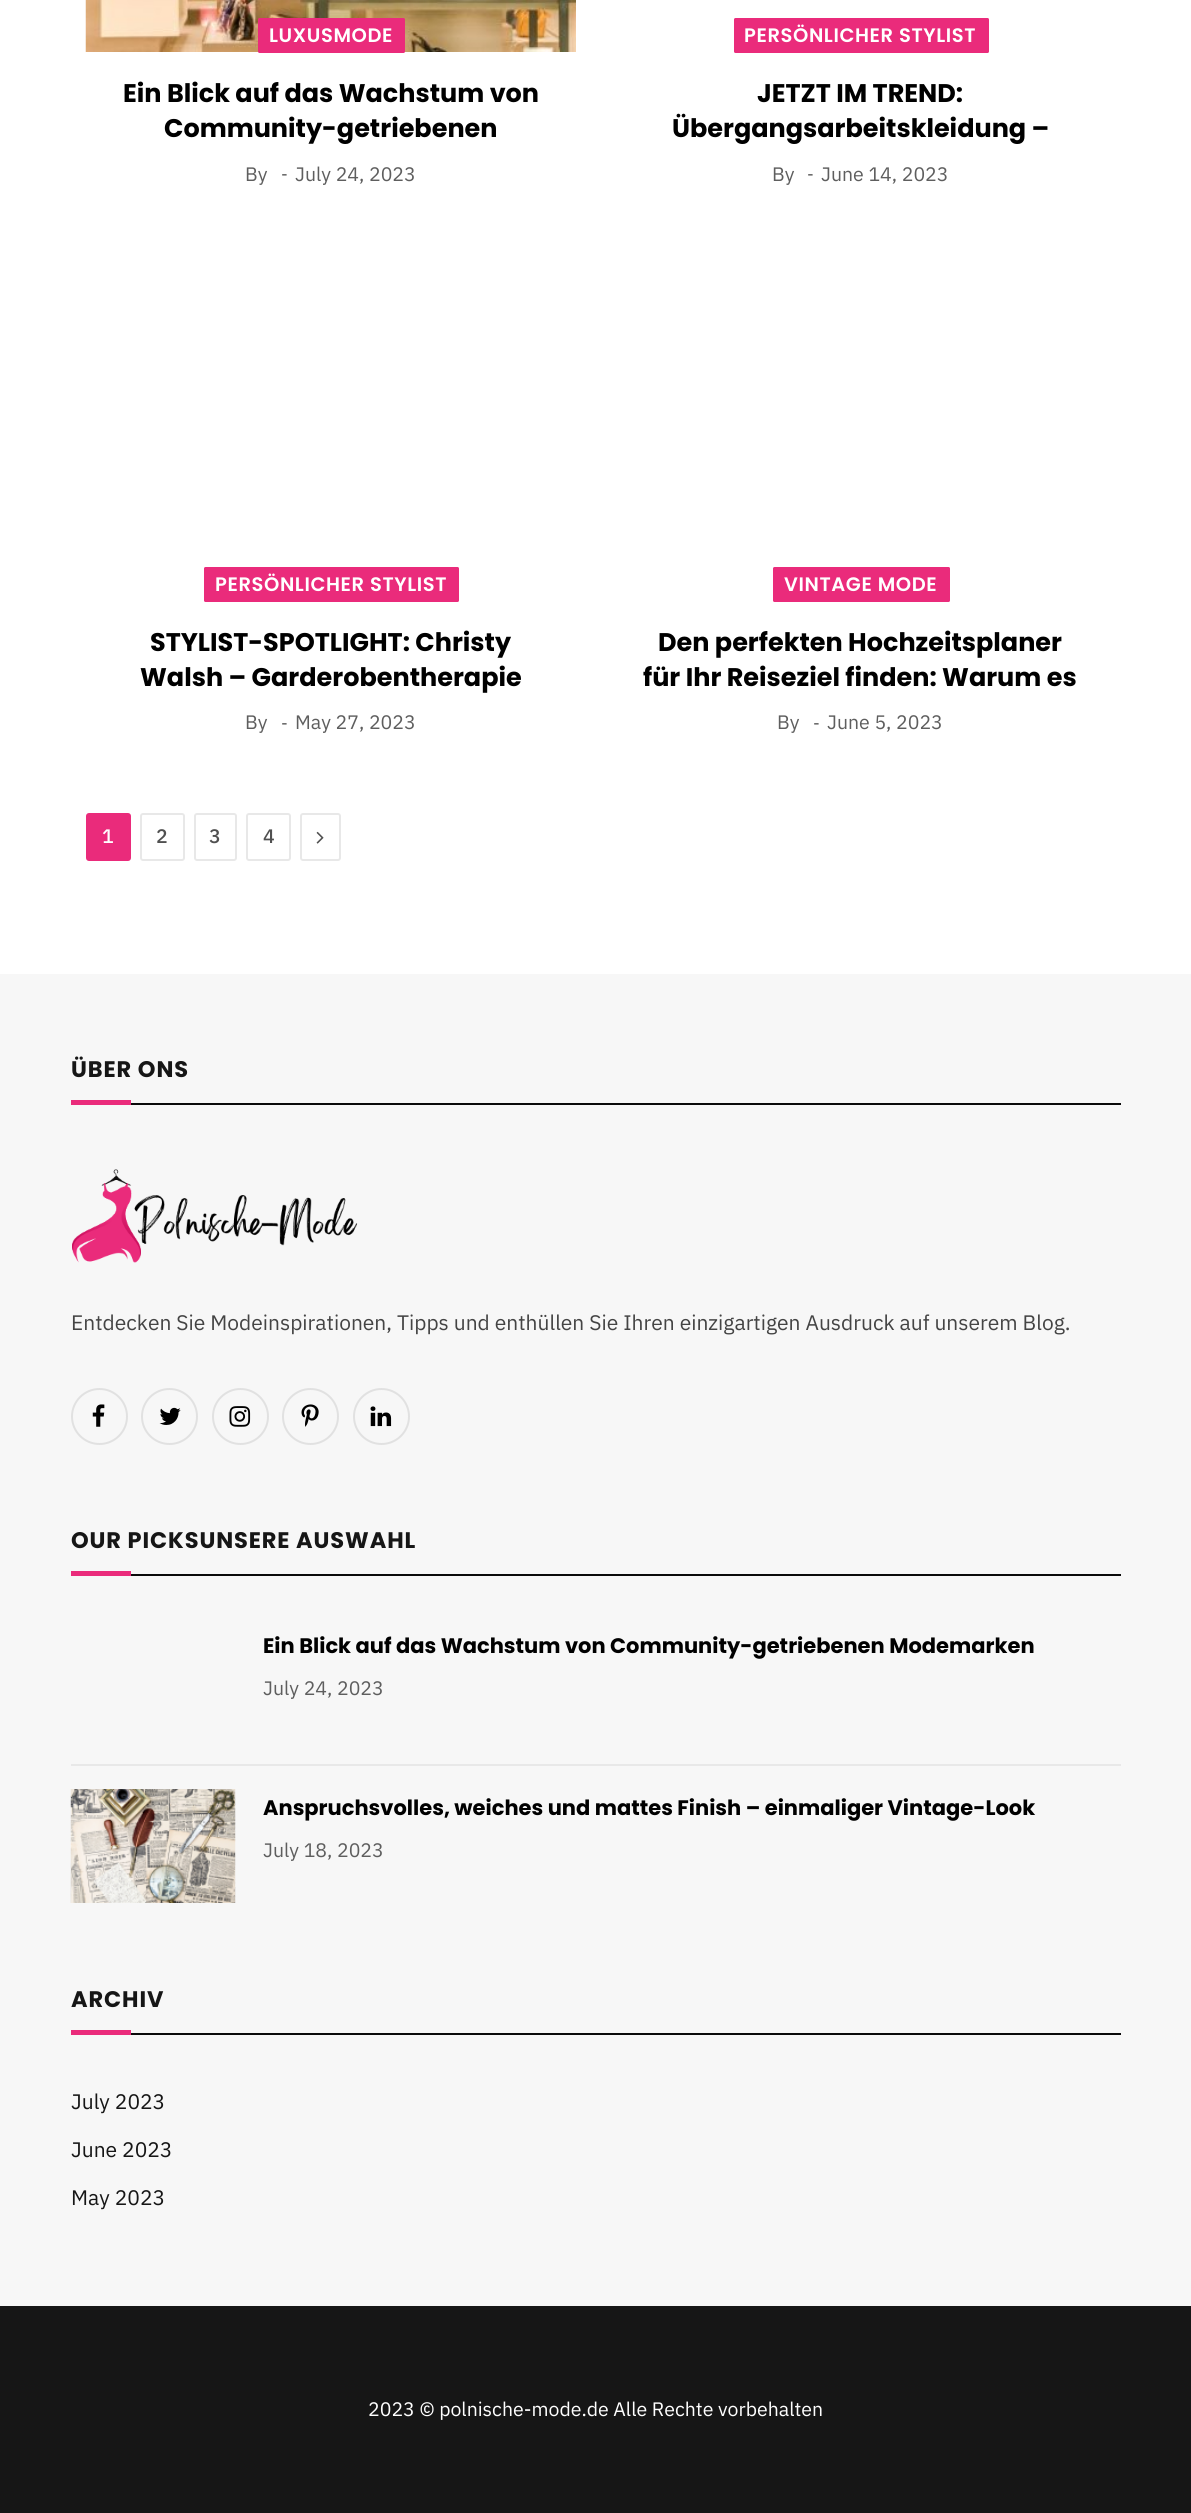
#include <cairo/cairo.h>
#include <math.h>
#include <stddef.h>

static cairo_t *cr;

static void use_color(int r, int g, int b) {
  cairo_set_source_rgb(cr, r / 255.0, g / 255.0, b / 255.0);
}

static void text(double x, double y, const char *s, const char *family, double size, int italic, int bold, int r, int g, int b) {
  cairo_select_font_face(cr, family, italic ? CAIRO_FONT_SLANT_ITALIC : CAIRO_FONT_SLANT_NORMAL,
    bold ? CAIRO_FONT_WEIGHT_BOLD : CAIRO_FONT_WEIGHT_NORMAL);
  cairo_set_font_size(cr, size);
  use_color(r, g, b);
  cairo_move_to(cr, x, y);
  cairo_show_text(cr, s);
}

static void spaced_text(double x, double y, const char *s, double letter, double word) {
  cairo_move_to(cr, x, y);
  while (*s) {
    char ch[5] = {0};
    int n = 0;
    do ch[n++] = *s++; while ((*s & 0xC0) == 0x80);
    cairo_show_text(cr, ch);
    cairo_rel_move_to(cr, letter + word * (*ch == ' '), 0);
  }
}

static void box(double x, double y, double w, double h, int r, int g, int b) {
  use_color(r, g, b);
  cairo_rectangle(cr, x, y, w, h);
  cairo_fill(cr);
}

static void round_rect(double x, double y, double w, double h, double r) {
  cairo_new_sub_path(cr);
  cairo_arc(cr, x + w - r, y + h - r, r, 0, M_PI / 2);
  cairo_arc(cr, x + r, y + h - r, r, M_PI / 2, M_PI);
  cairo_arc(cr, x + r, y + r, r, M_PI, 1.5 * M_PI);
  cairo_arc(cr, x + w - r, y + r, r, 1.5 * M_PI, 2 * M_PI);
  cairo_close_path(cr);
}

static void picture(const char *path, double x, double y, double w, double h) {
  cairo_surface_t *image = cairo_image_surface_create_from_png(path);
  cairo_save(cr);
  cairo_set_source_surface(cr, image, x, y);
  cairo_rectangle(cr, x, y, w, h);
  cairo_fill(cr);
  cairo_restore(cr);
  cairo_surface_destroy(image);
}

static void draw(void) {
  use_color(255, 255, 255);
  cairo_paint(cr);
  picture("img_01.png", 85, 0, 491, 52);
  use_color(234, 43, 123);
  round_rect(258, 18, 147, 35, 1.5);
  cairo_fill(cr);
  round_rect(734, 18, 255, 35, 1.5);
  cairo_fill(cr);
  round_rect(204, 567, 255, 35, 1.5);
  cairo_fill(cr);
  round_rect(773, 567, 177, 35, 1.5);
  cairo_fill(cr);
  round_rect(86, 813, 45, 48, 3);
  cairo_fill(cr);
  round_rect(141, 814, 43, 46, 2);
  use_color(232, 232, 232);
  cairo_stroke(cr);
  round_rect(195, 814, 41, 46, 2);
  cairo_stroke(cr);
  round_rect(247, 814, 43, 46, 2);
  cairo_stroke(cr);
  round_rect(301, 814, 39, 46, 2);
  cairo_stroke(cr);
  picture("img_02.png", 316, 831, 8, 13);
  box(0, 974, 1191, 1332, 247, 247, 247);
  box(131, 1103, 990, 2, 10, 10, 10);
  box(71, 1100, 60, 5, 234, 43, 123);
  picture("img_03.png", 72, 1169, 286, 94);
  cairo_arc(cr, 99.5, 1416.5, 27.5, 0, 2 * M_PI);
  use_color(225, 225, 225);
  cairo_stroke(cr);
  picture("img_04.png", 92, 1404, 13, 23);
  cairo_arc(cr, 169.5, 1416.5, 27.5, 0, 2 * M_PI);
  cairo_stroke(cr);
  picture("img_05.png", 159, 1407, 22, 18);
  cairo_arc(cr, 240.5, 1416.5, 27.5, 0, 2 * M_PI);
  cairo_stroke(cr);
  picture("img_06.png", 229, 1406, 22, 21);
  cairo_arc(cr, 310.5, 1416.5, 27.5, 0, 2 * M_PI);
  cairo_stroke(cr);
  picture("img_07.png", 301, 1404, 18, 23);
  cairo_arc(cr, 381.5, 1416.5, 27.5, 0, 2 * M_PI);
  cairo_stroke(cr);
  picture("img_08.png", 370, 1406, 22, 21);
  box(131, 1574, 990, 2, 10, 10, 10);
  box(71, 1571, 60, 5, 234, 43, 123);
  box(71, 1764, 1050, 2, 232, 232, 232);
  picture("img_09.png", 70, 1789, 166, 114);
  box(131, 2033, 990, 2, 10, 10, 10);
  box(71, 2030, 60, 5, 234, 43, 123);
  box(0, 2306, 1191, 207, 22, 22, 22);
  cairo_select_font_face(cr, "Poppins SemiBold", CAIRO_FONT_SLANT_NORMAL, CAIRO_FONT_WEIGHT_NORMAL);
  cairo_set_font_size(cr, 19.5);
  use_color(255, 255, 255);
  spaced_text(269, 42, "LUXUSMODE", 0.6, 0);
  text(123, 102, "Ein Blick auf das Wachstum von", "Poppins", 25.5, 0, 1, 0, 0, 0);
  text(164, 137, "Community-getriebenen", "Poppins", 25.5, 0, 1, 0, 0, 0);
  text(245, 181, "By", "IBM Plex Sans", 19.5, 0, 0, 94, 94, 94);
  text(281, 180, "-", "IBM Plex Sans", 17, 0, 0, 94, 94, 94);
  text(295, 181, "July 24, 2023", "IBM Plex Sans", 19.5, 0, 0, 94, 94, 94);
  cairo_select_font_face(cr, "Poppins SemiBold", CAIRO_FONT_SLANT_NORMAL, CAIRO_FONT_WEIGHT_NORMAL);
  use_color(255, 255, 255);
  spaced_text(744, 42, "PERSÖNLICHER STYLIST", 0.6, 0);
  text(757, 102, "JETZT IM TREND:", "Poppins", 25.5, 0, 1, 0, 0, 0);
  text(672, 137, "Übergangsarbeitskleidung –", "Poppins", 25.5, 0, 1, 0, 0, 0);
  text(772, 181, "By", "IBM Plex Sans", 19.5, 0, 0, 94, 94, 94);
  text(807, 180, "-", "IBM Plex Sans", 17, 0, 0, 94, 94, 94);
  text(821, 181, "June 14, 2023", "IBM Plex Sans", 19.5, 0, 0, 94, 94, 94);
  cairo_select_font_face(cr, "Poppins SemiBold", CAIRO_FONT_SLANT_NORMAL, CAIRO_FONT_WEIGHT_NORMAL);
  use_color(255, 255, 255);
  spaced_text(215, 591, "PERSÖNLICHER STYLIST", 0.6, 0);
  text(150, 651, "STYLIST-SPOTLIGHT: Christy", "Poppins", 25.5, 0, 1, 0, 0, 0);
  text(140, 686, "Walsh – Garderobentherapie", "Poppins", 25.5, 0, 1, 0, 0, 0);
  text(245, 729, "By", "IBM Plex Sans", 19.5, 0, 0, 94, 94, 94);
  text(281, 729, "-", "IBM Plex Sans", 17, 0, 0, 94, 94, 94);
  text(295, 729, "May 27, 2023", "IBM Plex Sans", 19.5, 0, 0, 94, 94, 94);
  cairo_select_font_face(cr, "Poppins SemiBold", CAIRO_FONT_SLANT_NORMAL, CAIRO_FONT_WEIGHT_NORMAL);
  use_color(255, 255, 255);
  spaced_text(784, 591, "VINTAGE MODE", 0.6, 0);
  text(658, 651, "Den perfekten Hochzeitsplaner", "Poppins", 25.5, 0, 1, 0, 0, 0);
  text(643, 686, "für Ihr Reiseziel finden: Warum es", "Poppins", 25.5, 0, 1, 0, 0, 0);
  text(777, 729, "By", "IBM Plex Sans", 19.5, 0, 0, 94, 94, 94);
  text(813, 729, "-", "IBM Plex Sans", 17, 0, 0, 94, 94, 94);
  text(827, 729, "June 5, 2023", "IBM Plex Sans", 19.5, 0, 0, 94, 94, 94);
  text(102, 843, "1", "IBM Plex Sans Medium", 19.5, 0, 0, 255, 255, 255);
  text(156, 843, "2", "IBM Plex Sans Medium", 19.5, 0, 0, 80, 80, 80);
  text(209, 843, "3", "IBM Plex Sans Medium", 19.5, 0, 0, 80, 80, 80);
  text(263, 843, "4", "IBM Plex Sans Medium", 19.5, 0, 0, 80, 80, 80);
  cairo_select_font_face(cr, "Poppins", CAIRO_FONT_SLANT_NORMAL, CAIRO_FONT_WEIGHT_BOLD);
  cairo_set_font_size(cr, 22.5);
  use_color(22, 22, 22);
  spaced_text(71, 1077, "ÜBER ONS", 0.9, 0);
  text(71, 1330, "Entdecken Sie Modeinspirationen, Tipps und enthüllen Sie Ihren einzigartigen Ausdruck auf unserem Blog.", "IBM Plex Sans", 21, 0, 0, 68, 68, 68);
  cairo_select_font_face(cr, "Poppins", CAIRO_FONT_SLANT_NORMAL, CAIRO_FONT_WEIGHT_BOLD);
  cairo_set_font_size(cr, 22.5);
  use_color(22, 22, 22);
  spaced_text(71, 1548, "OUR PICKSUNSERE AUSWAHL", 0.9, 0);
  text(263, 1653, "Ein Blick auf das Wachstum von Community-getriebenen Modemarken", "Poppins", 21, 0, 1, 0, 0, 0);
  text(263, 1695, "July 24, 2023", "IBM Plex Sans", 19.5, 0, 0, 94, 94, 94);
  text(263, 1815, "Anspruchsvolles, weiches und mattes Finish – einmaliger Vintage-Look", "Poppins", 21, 0, 1, 0, 0, 0);
  text(263, 1857, "July 18, 2023", "IBM Plex Sans", 19.5, 0, 0, 94, 94, 94);
  cairo_select_font_face(cr, "Poppins", CAIRO_FONT_SLANT_NORMAL, CAIRO_FONT_WEIGHT_BOLD);
  cairo_set_font_size(cr, 22.5);
  use_color(22, 22, 22);
  spaced_text(71, 2007, "ARCHIV", 0.9, 0);
  text(71, 2109, "July 2023", "IBM Plex Sans", 21, 0, 0, 22, 22, 22);
  text(71, 2157, "June 2023", "IBM Plex Sans", 21, 0, 0, 22, 22, 22);
  text(71, 2205, "May 2023", "IBM Plex Sans", 21, 0, 0, 22, 22, 22);
  text(368, 2416, "2023 © polnische-mode.de Alle Rechte vorbehalten", "IBM Plex Sans", 19.5, 0, 0, 255, 255, 255);
}

int main(void) {
  cairo_surface_t *surface = cairo_image_surface_create(CAIRO_FORMAT_RGB24, 1191, 2513);
  cr = cairo_create(surface);
  cairo_font_options_t *options = cairo_font_options_create();
  cairo_font_options_set_hint_metrics(options, CAIRO_HINT_METRICS_OFF);
  cairo_font_options_set_hint_style(options, CAIRO_HINT_STYLE_NONE);
  cairo_set_font_options(cr, options);
  cairo_set_miter_limit(cr, 4);
  draw();
  cairo_surface_write_to_png(surface, "out.png");
  cairo_font_options_destroy(options);
  cairo_destroy(cr);
  cairo_surface_destroy(surface);
  return 0;
}
